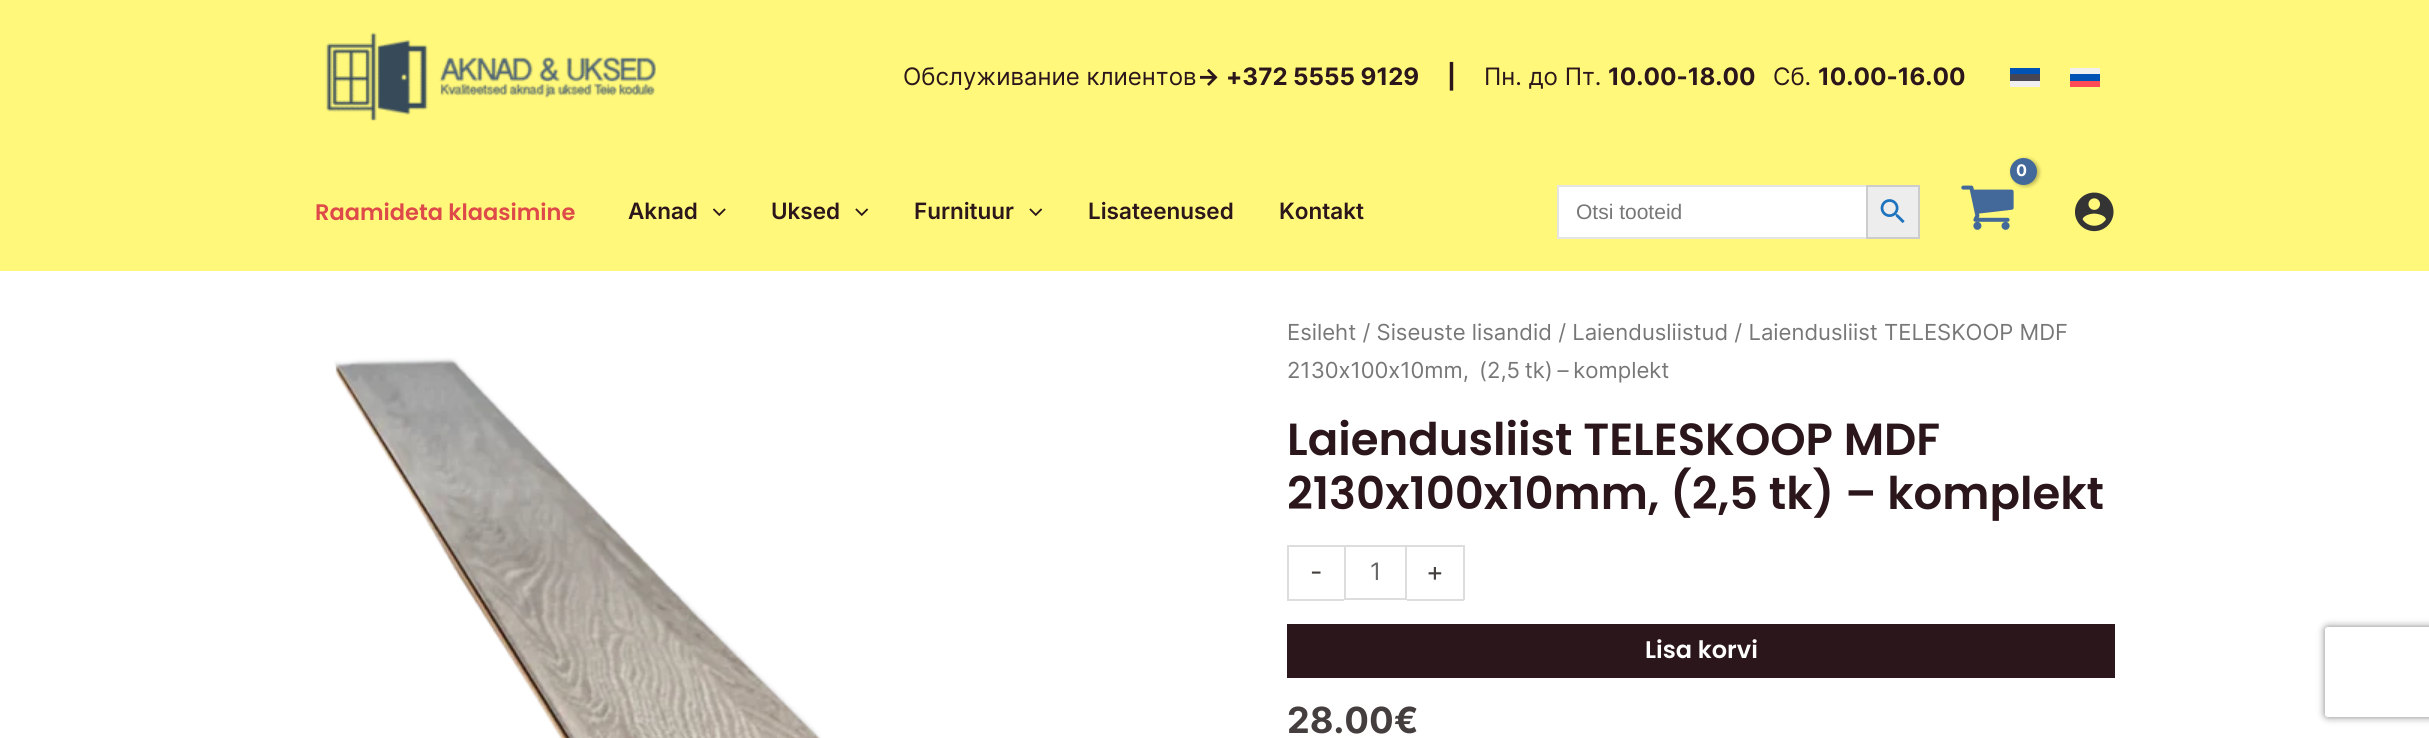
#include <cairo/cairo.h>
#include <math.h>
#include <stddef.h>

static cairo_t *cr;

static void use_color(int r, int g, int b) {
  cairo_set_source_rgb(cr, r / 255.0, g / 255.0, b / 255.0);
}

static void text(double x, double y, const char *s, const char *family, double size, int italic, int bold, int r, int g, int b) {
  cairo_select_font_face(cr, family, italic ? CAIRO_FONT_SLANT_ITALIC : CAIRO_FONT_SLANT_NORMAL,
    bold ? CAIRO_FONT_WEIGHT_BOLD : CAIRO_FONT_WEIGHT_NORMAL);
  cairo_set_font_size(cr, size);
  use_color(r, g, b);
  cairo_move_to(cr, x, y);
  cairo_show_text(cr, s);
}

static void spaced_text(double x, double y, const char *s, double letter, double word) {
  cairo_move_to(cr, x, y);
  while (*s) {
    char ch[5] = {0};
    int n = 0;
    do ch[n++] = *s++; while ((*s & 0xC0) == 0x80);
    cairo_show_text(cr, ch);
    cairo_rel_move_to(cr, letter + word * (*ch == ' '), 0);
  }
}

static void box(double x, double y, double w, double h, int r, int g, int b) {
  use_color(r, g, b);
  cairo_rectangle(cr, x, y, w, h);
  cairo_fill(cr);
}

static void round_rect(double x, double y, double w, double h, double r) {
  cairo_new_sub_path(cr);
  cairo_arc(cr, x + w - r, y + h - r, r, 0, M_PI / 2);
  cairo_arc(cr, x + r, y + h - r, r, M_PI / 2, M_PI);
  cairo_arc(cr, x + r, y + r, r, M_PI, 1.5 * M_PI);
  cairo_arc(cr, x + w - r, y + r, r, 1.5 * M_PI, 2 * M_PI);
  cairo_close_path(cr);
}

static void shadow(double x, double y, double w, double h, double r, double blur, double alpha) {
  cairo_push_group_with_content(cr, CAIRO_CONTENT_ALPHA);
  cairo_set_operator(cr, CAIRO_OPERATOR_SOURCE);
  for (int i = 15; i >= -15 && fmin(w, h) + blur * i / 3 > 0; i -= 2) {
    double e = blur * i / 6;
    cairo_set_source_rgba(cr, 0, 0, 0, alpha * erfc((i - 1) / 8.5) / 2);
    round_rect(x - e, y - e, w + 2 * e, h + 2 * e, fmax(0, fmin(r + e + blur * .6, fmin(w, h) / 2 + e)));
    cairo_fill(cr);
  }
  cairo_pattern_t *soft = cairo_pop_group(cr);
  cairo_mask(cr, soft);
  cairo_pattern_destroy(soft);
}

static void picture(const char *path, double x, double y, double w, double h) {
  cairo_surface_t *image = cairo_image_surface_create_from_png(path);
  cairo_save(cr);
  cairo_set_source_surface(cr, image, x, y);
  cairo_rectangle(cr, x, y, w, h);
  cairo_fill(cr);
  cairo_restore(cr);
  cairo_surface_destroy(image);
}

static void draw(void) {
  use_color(255, 255, 255);
  cairo_paint(cr);
  box(0, 0, 2429, 271, 255, 248, 122);
  picture("img_01.png", 325, 32, 331, 89);
  box(2010, 74, 30, 7, 70, 70, 85);
  box(2010, 81, 30, 6, 240, 240, 240);
  box(2010, 68, 30, 6, 0, 82, 180);
  box(2070, 74, 30, 7, 0, 82, 180);
  box(2070, 81, 30, 6, 255, 75, 85);
  box(2070, 68, 30, 6, 240, 240, 240);
  picture("img_02.png", 713, 208, 13, 8);
  picture("img_03.png", 855, 208, 14, 8);
  picture("img_03.png", 1029, 208, 14, 8);
  picture("img_04.png", 1961, 185, 53, 45);
  use_color(0, 0, 0);
  shadow(2012, 159, 27, 27, 13.5, 2, 0.3);
  use_color(66, 105, 153);
  cairo_arc(cr, 2023.5, 171.5, 13.5, 0, 2 * M_PI);
  cairo_fill(cr);
  box(1559, 187, 307, 50, 255, 255, 255);
  box(1557, 185, 309, 2, 229, 229, 229);
  box(1557, 237, 309, 2, 229, 229, 229);
  box(1557, 185, 2, 54, 229, 229, 229);
  use_color(237, 237, 237);
  cairo_rectangle(cr, 1867, 186, 52, 52);
  cairo_fill_preserve(cr);
  use_color(204, 204, 204);
  cairo_stroke(cr);
  picture("img_05.png", 1880, 199, 25, 25);
  picture("img_06.png", 2075, 192, 39, 40);
  picture("img_07.png", 334, 357, 487, 381);
  box(1287, 545, 57, 2, 221, 221, 221);
  box(1287, 599, 57, 2, 221, 221, 221);
  box(1287, 545, 2, 55, 221, 221, 221);
  cairo_rectangle(cr, 1345, 546, 61, 53);
  cairo_stroke(cr);
  box(1407, 545, 57, 2, 221, 221, 221);
  box(1463, 545, 2, 55, 221, 221, 221);
  box(1407, 599, 57, 2, 221, 221, 221);
  box(1287, 624, 828, 54, 43, 22, 27);
  cairo_save(cr);
  cairo_set_fill_rule(cr, CAIRO_FILL_RULE_EVEN_ODD);
  cairo_new_path(cr);
  cairo_move_to(cr, 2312, 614);
  cairo_line_to(cr, 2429, 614);
  cairo_line_to(cr, 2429, 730);
  cairo_line_to(cr, 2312, 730);
  cairo_close_path(cr);
  cairo_move_to(cr, 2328, 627);
  cairo_line_to(cr, 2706, 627);
  cairo_curve_to(cr, 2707.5, 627, 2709, 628.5, 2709, 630);
  cairo_line_to(cr, 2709, 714);
  cairo_curve_to(cr, 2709, 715.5, 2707.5, 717, 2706, 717);
  cairo_line_to(cr, 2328, 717);
  cairo_curve_to(cr, 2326.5, 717, 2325, 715.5, 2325, 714);
  cairo_line_to(cr, 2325, 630);
  cairo_curve_to(cr, 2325, 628.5, 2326.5, 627, 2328, 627);
  cairo_close_path(cr);
  cairo_clip(cr);
  use_color(128, 128, 128);
  shadow(2325, 627, 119, 90, 3, 4, 1);
  cairo_restore(cr);
  text(903, 85, "Обслуживание клиентов", "Inter", 24, 0, 0, 43, 22, 27);
  text(1197, 85, "→", "Inter", 24, 0, 1, 43, 22, 27);
  text(1226, 85, "+372 5555 9129     |", "Inter", 24, 0, 1, 43, 22, 27);
  text(1484, 85, "Пн. до Пт.", "Inter", 24, 0, 0, 43, 22, 27);
  text(1608, 85, "10.00-18.00", "Inter", 24, 0, 1, 43, 22, 27);
  text(1773, 85, "Сб.", "Inter", 24, 0, 0, 43, 22, 27);
  text(1818, 85, "10.00-16.00", "Inter", 24, 0, 1, 43, 22, 27);
  text(315, 220, "Raamideta klaasimine", "Poppins SemiBold", 22.5, 0, 0, 222, 73, 73);
  text(628, 219, "Aknad", "Inter SemiBold", 22.5, 0, 0, 43, 22, 27);
  text(771, 219, "Uksed", "Inter SemiBold", 22.5, 0, 0, 43, 22, 27);
  text(914, 219, "Furnituur", "Inter SemiBold", 22.5, 0, 0, 43, 22, 27);
  text(1088, 219, "Lisateenused", "Inter SemiBold", 22.5, 0, 0, 43, 22, 27);
  text(1279, 219, "Kontakt", "Inter SemiBold", 22.5, 0, 0, 43, 22, 27);
  cairo_select_font_face(cr, "Inter", CAIRO_FONT_SLANT_NORMAL, CAIRO_FONT_WEIGHT_BOLD);
  cairo_set_font_size(cr, 16);
  use_color(255, 255, 255);
  spaced_text(2016, 176, "0", -1, 0);
  text(1576, 219, "Otsi tooteid", "Liberation Sans", 21, 0, 0, 119, 119, 119);
  text(1287, 340, "Esileht / Siseuste lisandid / Laiendusliistud / Laiendusliist TELESKOOP MDF", "Inter", 22.1, 0, 0, 119, 119, 119);
  spaced_text(1287, 378, "2130x100x10mm,", 0, -1.5);
  spaced_text(1479, 378, "(2,5 tk) – komplekt", 0, -1.5);
  text(1287, 455, "Laiendusliist TELESKOOP MDF", "Poppins SemiBold", 45, 0, 0, 43, 22, 27);
  text(1287, 509, "2130x100x10mm, (2,5 tk) – komplekt", "Poppins SemiBold", 45, 0, 0, 43, 22, 27);
  text(1310, 581, "-", "Inter", 27, 0, 0, 69, 62, 62);
  text(1370, 580, "1", "Inter", 24, 0, 0, 102, 102, 102);
  text(1426, 581, "+", "Inter", 27, 0, 0, 69, 62, 62);
  text(1645, 658, "Lisa korvi", "Poppins SemiBold", 24, 0, 0, 255, 255, 255);
  text(1287, 733, "28.00€", "Inter", 36, 0, 1, 69, 62, 62);
}

int main(void) {
  cairo_surface_t *surface = cairo_image_surface_create(CAIRO_FORMAT_RGB24, 2429, 738);
  cr = cairo_create(surface);
  cairo_font_options_t *options = cairo_font_options_create();
  cairo_font_options_set_hint_metrics(options, CAIRO_HINT_METRICS_OFF);
  cairo_font_options_set_hint_style(options, CAIRO_HINT_STYLE_NONE);
  cairo_set_font_options(cr, options);
  cairo_set_miter_limit(cr, 4);
  draw();
  cairo_surface_write_to_png(surface, "out.png");
  cairo_font_options_destroy(options);
  cairo_destroy(cr);
  cairo_surface_destroy(surface);
  return 0;
}
